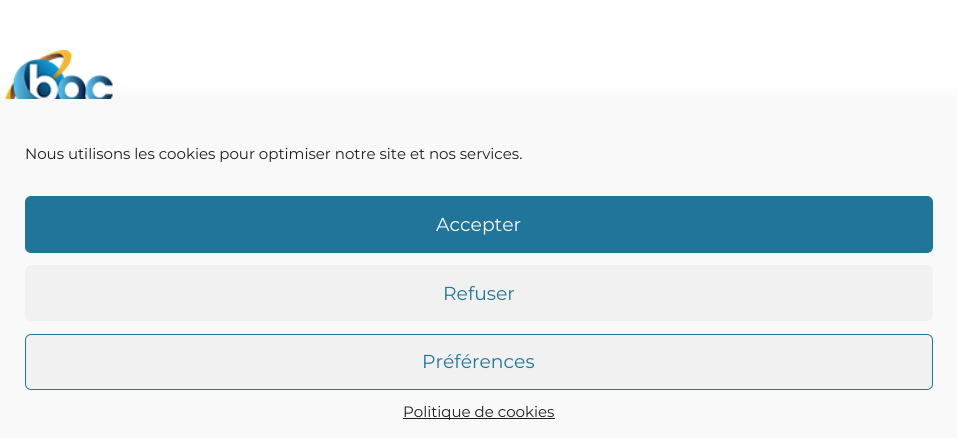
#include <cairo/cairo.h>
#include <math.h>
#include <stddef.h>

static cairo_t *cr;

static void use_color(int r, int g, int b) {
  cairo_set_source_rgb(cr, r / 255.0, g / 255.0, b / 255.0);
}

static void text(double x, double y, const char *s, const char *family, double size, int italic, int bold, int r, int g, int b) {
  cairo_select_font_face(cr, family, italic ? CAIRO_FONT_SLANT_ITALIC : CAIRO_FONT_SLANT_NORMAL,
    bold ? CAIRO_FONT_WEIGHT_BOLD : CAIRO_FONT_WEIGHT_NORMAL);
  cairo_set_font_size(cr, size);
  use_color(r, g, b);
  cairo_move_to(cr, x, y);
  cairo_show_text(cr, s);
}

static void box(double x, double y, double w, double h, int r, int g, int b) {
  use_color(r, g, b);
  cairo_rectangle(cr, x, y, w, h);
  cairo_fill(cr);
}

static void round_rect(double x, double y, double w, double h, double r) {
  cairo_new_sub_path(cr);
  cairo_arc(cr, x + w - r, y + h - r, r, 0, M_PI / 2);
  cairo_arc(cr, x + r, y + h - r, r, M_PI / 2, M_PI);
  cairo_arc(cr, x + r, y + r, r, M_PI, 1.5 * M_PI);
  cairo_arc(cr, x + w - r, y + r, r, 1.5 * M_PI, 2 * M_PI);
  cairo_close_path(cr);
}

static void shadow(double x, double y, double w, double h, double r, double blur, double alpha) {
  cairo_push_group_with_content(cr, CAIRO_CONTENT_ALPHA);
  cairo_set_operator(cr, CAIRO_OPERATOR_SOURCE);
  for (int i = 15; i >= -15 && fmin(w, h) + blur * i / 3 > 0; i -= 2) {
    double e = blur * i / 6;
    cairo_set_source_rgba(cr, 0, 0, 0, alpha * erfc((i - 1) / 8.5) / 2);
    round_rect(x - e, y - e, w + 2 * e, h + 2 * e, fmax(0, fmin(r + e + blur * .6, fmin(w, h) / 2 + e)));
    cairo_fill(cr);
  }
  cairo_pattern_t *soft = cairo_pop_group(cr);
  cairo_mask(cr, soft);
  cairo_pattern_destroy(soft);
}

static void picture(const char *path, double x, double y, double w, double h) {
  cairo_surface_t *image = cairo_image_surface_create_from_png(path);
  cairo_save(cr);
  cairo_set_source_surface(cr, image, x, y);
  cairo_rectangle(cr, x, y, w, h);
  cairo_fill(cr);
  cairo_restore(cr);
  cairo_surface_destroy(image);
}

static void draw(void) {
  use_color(255, 255, 255);
  cairo_paint(cr);
  picture("img_01.png", 5, 49, 108, 50);
  use_color(0, 0, 0);
  shadow(0, 111, 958, 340, 0, 12.5, 0.19);
  box(0, 99, 957, 339, 249, 249, 249);
  use_color(33, 117, 155);
  round_rect(25.5, 196.5, 907, 56, 5.5);
  cairo_fill_preserve(cr);
  cairo_set_line_width(cr, 1);
  cairo_stroke(cr);
  use_color(241, 241, 241);
  round_rect(25, 265, 908, 56, 6);
  cairo_fill(cr);
  round_rect(25.5, 334.5, 907, 55, 5.5);
  cairo_fill_preserve(cr);
  use_color(33, 117, 155);
  cairo_stroke(cr);
  box(403, 418, 152, 1, 25, 30, 35);
  text(25, 159, "Nous utilisons les cookies pour optimiser notre site et nos services.", "Montserrat", 15, 0, 0, 25, 30, 35);
  text(436, 231, "Accepter", "Montserrat", 18.75, 0, 0, 255, 255, 255);
  text(443, 300, "Refuser", "Montserrat", 18.75, 0, 0, 33, 117, 155);
  text(422, 368, "Préférences", "Montserrat", 18.75, 0, 0, 33, 117, 155);
  text(403, 417, "Politique de cookies", "Montserrat", 15, 0, 0, 25, 30, 35);
}

int main(void) {
  cairo_surface_t *surface = cairo_image_surface_create(CAIRO_FORMAT_RGB24, 957, 438);
  cr = cairo_create(surface);
  cairo_font_options_t *options = cairo_font_options_create();
  cairo_font_options_set_hint_metrics(options, CAIRO_HINT_METRICS_OFF);
  cairo_font_options_set_hint_style(options, CAIRO_HINT_STYLE_NONE);
  cairo_set_font_options(cr, options);
  cairo_set_miter_limit(cr, 4);
  draw();
  cairo_surface_write_to_png(surface, "out.png");
  cairo_font_options_destroy(options);
  cairo_destroy(cr);
  cairo_surface_destroy(surface);
  return 0;
}
